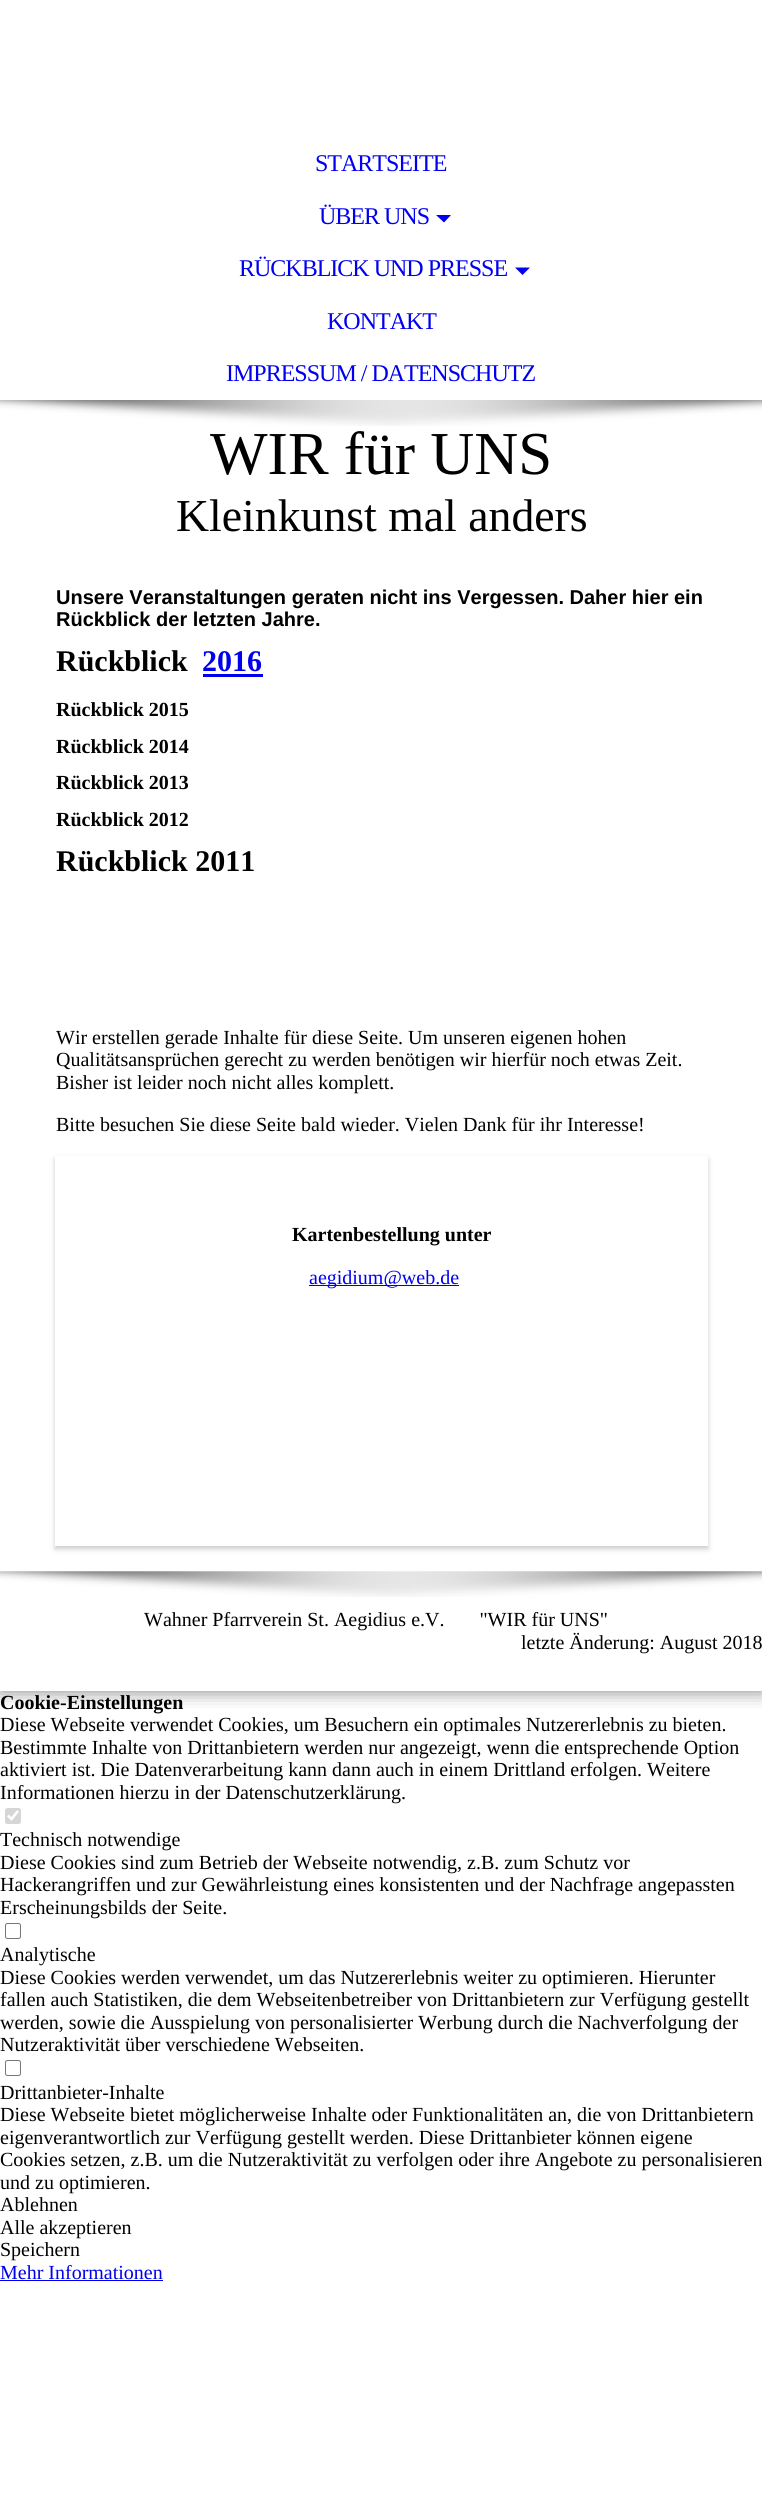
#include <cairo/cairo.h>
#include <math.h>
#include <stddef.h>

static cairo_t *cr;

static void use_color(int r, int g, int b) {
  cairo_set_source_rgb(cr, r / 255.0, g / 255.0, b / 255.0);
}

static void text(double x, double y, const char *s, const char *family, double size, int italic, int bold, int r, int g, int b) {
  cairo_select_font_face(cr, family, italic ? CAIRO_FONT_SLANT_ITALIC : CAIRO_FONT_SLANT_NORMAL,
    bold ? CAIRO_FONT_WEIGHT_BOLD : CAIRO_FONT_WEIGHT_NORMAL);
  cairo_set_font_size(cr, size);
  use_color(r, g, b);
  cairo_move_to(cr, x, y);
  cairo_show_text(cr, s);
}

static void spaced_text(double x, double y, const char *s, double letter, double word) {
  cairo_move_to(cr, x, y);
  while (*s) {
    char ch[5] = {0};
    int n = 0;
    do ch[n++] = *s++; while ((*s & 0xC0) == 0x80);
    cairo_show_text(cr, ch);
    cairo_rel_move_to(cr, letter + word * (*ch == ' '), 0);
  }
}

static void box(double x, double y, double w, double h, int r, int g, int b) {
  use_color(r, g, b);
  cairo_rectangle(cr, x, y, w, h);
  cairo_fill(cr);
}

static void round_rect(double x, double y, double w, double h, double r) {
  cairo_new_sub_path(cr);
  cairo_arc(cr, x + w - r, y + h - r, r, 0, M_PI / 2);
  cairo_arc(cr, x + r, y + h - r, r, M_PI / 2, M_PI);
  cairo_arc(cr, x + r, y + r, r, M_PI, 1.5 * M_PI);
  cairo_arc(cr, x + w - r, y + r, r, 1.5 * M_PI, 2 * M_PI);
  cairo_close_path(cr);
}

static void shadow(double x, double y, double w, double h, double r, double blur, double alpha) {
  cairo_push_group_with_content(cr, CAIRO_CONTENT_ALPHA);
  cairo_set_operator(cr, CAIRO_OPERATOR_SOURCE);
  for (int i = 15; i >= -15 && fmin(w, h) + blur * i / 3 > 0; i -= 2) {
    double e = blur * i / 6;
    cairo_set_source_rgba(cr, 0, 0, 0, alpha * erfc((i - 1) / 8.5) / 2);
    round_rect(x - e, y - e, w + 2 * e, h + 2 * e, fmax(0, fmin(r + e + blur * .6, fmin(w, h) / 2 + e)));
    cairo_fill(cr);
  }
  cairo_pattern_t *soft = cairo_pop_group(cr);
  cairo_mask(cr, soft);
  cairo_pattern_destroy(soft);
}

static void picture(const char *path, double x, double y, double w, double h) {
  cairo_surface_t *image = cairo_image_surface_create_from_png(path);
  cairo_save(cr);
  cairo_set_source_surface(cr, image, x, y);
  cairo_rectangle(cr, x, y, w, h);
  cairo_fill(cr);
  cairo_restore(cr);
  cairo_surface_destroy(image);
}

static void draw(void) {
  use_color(255, 255, 255);
  cairo_paint(cr);
  cairo_save(cr);
  cairo_rectangle(cr, 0, 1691, 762, 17);
  cairo_clip(cr);
  use_color(0, 0, 0);
  shadow(0, 0, 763, 1691, 0, 9.5, 0.5);
  cairo_restore(cr);
  use_color(0, 0, 238);
  cairo_new_path(cr);
  cairo_move_to(cr, 436, 215);
  cairo_line_to(cr, 451, 215);
  cairo_line_to(cr, 444, 222.5);
  cairo_close_path(cr);
  cairo_fill(cr);
  cairo_new_path(cr);
  cairo_move_to(cr, 515, 267.5);
  cairo_line_to(cr, 530, 267.5);
  cairo_line_to(cr, 522.5, 275);
  cairo_close_path(cr);
  cairo_fill(cr);
  picture("img_01.png", 0, 400, 762, 26);
  box(203, 674, 60, 3, 0, 0, 238);
  cairo_save(cr);
  cairo_set_fill_rule(cr, CAIRO_FILL_RULE_EVEN_ODD);
  cairo_new_path(cr);
  cairo_move_to(cr, 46, 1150);
  cairo_line_to(cr, 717, 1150);
  cairo_line_to(cr, 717, 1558);
  cairo_line_to(cr, 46, 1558);
  cairo_close_path(cr);
  cairo_move_to(cr, 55, 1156);
  cairo_line_to(cr, 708, 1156);
  cairo_line_to(cr, 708, 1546);
  cairo_line_to(cr, 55, 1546);
  cairo_close_path(cr);
  cairo_clip(cr);
  use_color(204, 204, 204);
  shadow(55, 1159, 653, 390, 0, 2.5, 1);
  cairo_restore(cr);
  box(309, 1285, 150, 1, 0, 0, 238);
  picture("img_02.png", 0, 1571, 762, 26);
  use_color(214, 214, 214);
  round_rect(5, 1808, 16, 16, 2.5);
  cairo_fill(cr);
  cairo_new_path(cr);
  cairo_move_to(cr, 8, 1815.5);
  cairo_line_to(cr, 11.5, 1819);
  cairo_line_to(cr, 18, 1811);
  use_color(255, 255, 255);
  cairo_set_line_width(cr, 2.6);
  cairo_stroke(cr);
  round_rect(5.5, 1923.5, 15, 15, 2);
  use_color(118, 118, 118);
  cairo_set_line_width(cr, 1);
  cairo_stroke(cr);
  round_rect(5.5, 2060.5, 15, 15, 2);
  cairo_stroke(cr);
  box(0, 2280, 163, 1, 0, 0, 238);
  cairo_select_font_face(cr, "Liberation Serif", CAIRO_FONT_SLANT_NORMAL, CAIRO_FONT_WEIGHT_NORMAL);
  cairo_set_font_size(cr, 24);
  spaced_text(315, 171, "STARTSEITE", -1, 0);
  spaced_text(319, 224, "ÜBER UNS", -1, 0);
  spaced_text(239, 276, "RÜCKBLICK UND PRESSE", -1, 0);
  spaced_text(327, 329, "KONTAKT", -1, 0);
  spaced_text(226, 381, "IMPRESSUM / DATENSCHUTZ", -1, 0);
  text(210, 474, "WIR für UNS", "Liberation Serif", 61, 0, 0, 0, 0, 0);
  text(176, 531, "Kleinkunst mal anders", "Liberation Serif", 45.75, 0, 0, 0, 0, 0);
  text(56, 604, "Unsere Veranstaltungen geraten nicht ins Vergessen. Daher hier ein", "Liberation Sans", 20, 0, 1, 0, 0, 0);
  text(56, 626, "Rückblick der letzten Jahre.", "Liberation Sans", 20, 0, 1, 0, 0, 0);
  text(56, 671, "Rückblick", "Liberation Serif", 30, 0, 1, 0, 0, 0);
  text(202, 671, "2016", "Liberation Serif", 30, 0, 1, 0, 0, 238);
  text(56, 716, "Rückblick 2015", "Liberation Serif", 20, 0, 1, 0, 0, 0);
  text(56, 753, "Rückblick 2014", "Liberation Serif", 20, 0, 1, 0, 0, 0);
  text(56, 789, "Rückblick 2013", "Liberation Serif", 20, 0, 1, 0, 0, 0);
  text(56, 826, "Rückblick 2012", "Liberation Serif", 20, 0, 1, 0, 0, 0);
  text(56, 871, "Rückblick 2011", "Liberation Serif", 30, 0, 1, 0, 0, 0);
  text(56, 1044, "Wir erstellen gerade Inhalte für diese Seite. Um unseren eigenen hohen", "Liberation Serif", 20, 0, 0, 0, 0, 0);
  text(56, 1066, "Qualitätsansprüchen gerecht zu werden benötigen wir hierfür noch etwas Zeit.", "Liberation Serif", 20, 0, 0, 0, 0, 0);
  text(56, 1089, "Bisher ist leider noch nicht alles komplett.", "Liberation Serif", 20, 0, 0, 0, 0, 0);
  text(56, 1131, "Bitte besuchen Sie diese Seite bald wieder. Vielen Dank für ihr Interesse!", "Liberation Serif", 20, 0, 0, 0, 0, 0);
  text(292, 1241, "Kartenbestellung unter", "Liberation Serif", 20, 0, 1, 0, 0, 0);
  text(309, 1284, "aegidium@web.de", "Liberation Serif", 20, 0, 0, 0, 0, 238);
  text(144, 1626, "Wahner Pfarrverein St. Aegidius e.V.       \"WIR für UNS\"", "Liberation Serif", 20, 0, 0, 0, 0, 0);
  text(521, 1649, "letzte Änderung: August 2018", "Liberation Serif", 20, 0, 0, 0, 0, 0);
  text(0, 1709, "Cookie-Einstellungen", "Liberation Serif", 20, 0, 1, 0, 0, 0);
  text(0, 1731, "Diese Webseite verwendet Cookies, um Besuchern ein optimales Nutzererlebnis zu bieten.", "Liberation Serif", 20, 0, 0, 0, 0, 0);
  text(0, 1754, "Bestimmte Inhalte von Drittanbietern werden nur angezeigt, wenn die entsprechende Option", "Liberation Serif", 20, 0, 0, 0, 0, 0);
  text(0, 1776, "aktiviert ist. Die Datenverarbeitung kann dann auch in einem Drittland erfolgen. Weitere", "Liberation Serif", 20, 0, 0, 0, 0, 0);
  text(0, 1799, "Informationen hierzu in der Datenschutzerklärung.", "Liberation Serif", 20, 0, 0, 0, 0, 0);
  text(0, 1846, "Technisch notwendige", "Liberation Serif", 20, 0, 0, 0, 0, 0);
  text(0, 1869, "Diese Cookies sind zum Betrieb der Webseite notwendig, z.B. zum Schutz vor", "Liberation Serif", 20, 0, 0, 0, 0, 0);
  text(0, 1891, "Hackerangriffen und zur Gewährleistung eines konsistenten und der Nachfrage angepassten", "Liberation Serif", 20, 0, 0, 0, 0, 0);
  text(0, 1914, "Erscheinungsbilds der Seite.", "Liberation Serif", 20, 0, 0, 0, 0, 0);
  text(0, 1961, "Analytische", "Liberation Serif", 20, 0, 0, 0, 0, 0);
  text(0, 1984, "Diese Cookies werden verwendet, um das Nutzererlebnis weiter zu optimieren. Hierunter", "Liberation Serif", 20, 0, 0, 0, 0, 0);
  text(0, 2006, "fallen auch Statistiken, die dem Webseitenbetreiber von Drittanbietern zur Verfügung gestellt", "Liberation Serif", 20, 0, 0, 0, 0, 0);
  text(0, 2029, "werden, sowie die Ausspielung von personalisierter Werbung durch die Nachverfolgung der", "Liberation Serif", 20, 0, 0, 0, 0, 0);
  text(0, 2051, "Nutzeraktivität über verschiedene Webseiten.", "Liberation Serif", 20, 0, 0, 0, 0, 0);
  text(0, 2099, "Drittanbieter-Inhalte", "Liberation Serif", 20, 0, 0, 0, 0, 0);
  text(0, 2121, "Diese Webseite bietet möglicherweise Inhalte oder Funktionalitäten an, die von Drittanbietern", "Liberation Serif", 20, 0, 0, 0, 0, 0);
  text(0, 2144, "eigenverantwortlich zur Verfügung gestellt werden. Diese Drittanbieter können eigene", "Liberation Serif", 20, 0, 0, 0, 0, 0);
  text(0, 2166, "Cookies setzen, z.B. um die Nutzeraktivität zu verfolgen oder ihre Angebote zu personalisieren", "Liberation Serif", 20, 0, 0, 0, 0, 0);
  text(0, 2189, "und zu optimieren.", "Liberation Serif", 20, 0, 0, 0, 0, 0);
  text(0, 2211, "Ablehnen", "Liberation Serif", 20, 0, 0, 0, 0, 0);
  text(0, 2234, "Alle akzeptieren", "Liberation Serif", 20, 0, 0, 0, 0, 0);
  text(0, 2256, "Speichern", "Liberation Serif", 20, 0, 0, 0, 0, 0);
  text(0, 2279, "Mehr Informationen", "Liberation Serif", 20, 0, 0, 0, 0, 238);
}

int main(void) {
  cairo_surface_t *surface = cairo_image_surface_create(CAIRO_FORMAT_RGB24, 762, 2517);
  cr = cairo_create(surface);
  cairo_font_options_t *options = cairo_font_options_create();
  cairo_font_options_set_hint_metrics(options, CAIRO_HINT_METRICS_OFF);
  cairo_font_options_set_hint_style(options, CAIRO_HINT_STYLE_NONE);
  cairo_set_font_options(cr, options);
  cairo_set_miter_limit(cr, 4);
  draw();
  cairo_surface_write_to_png(surface, "out.png");
  cairo_font_options_destroy(options);
  cairo_destroy(cr);
  cairo_surface_destroy(surface);
  return 0;
}
